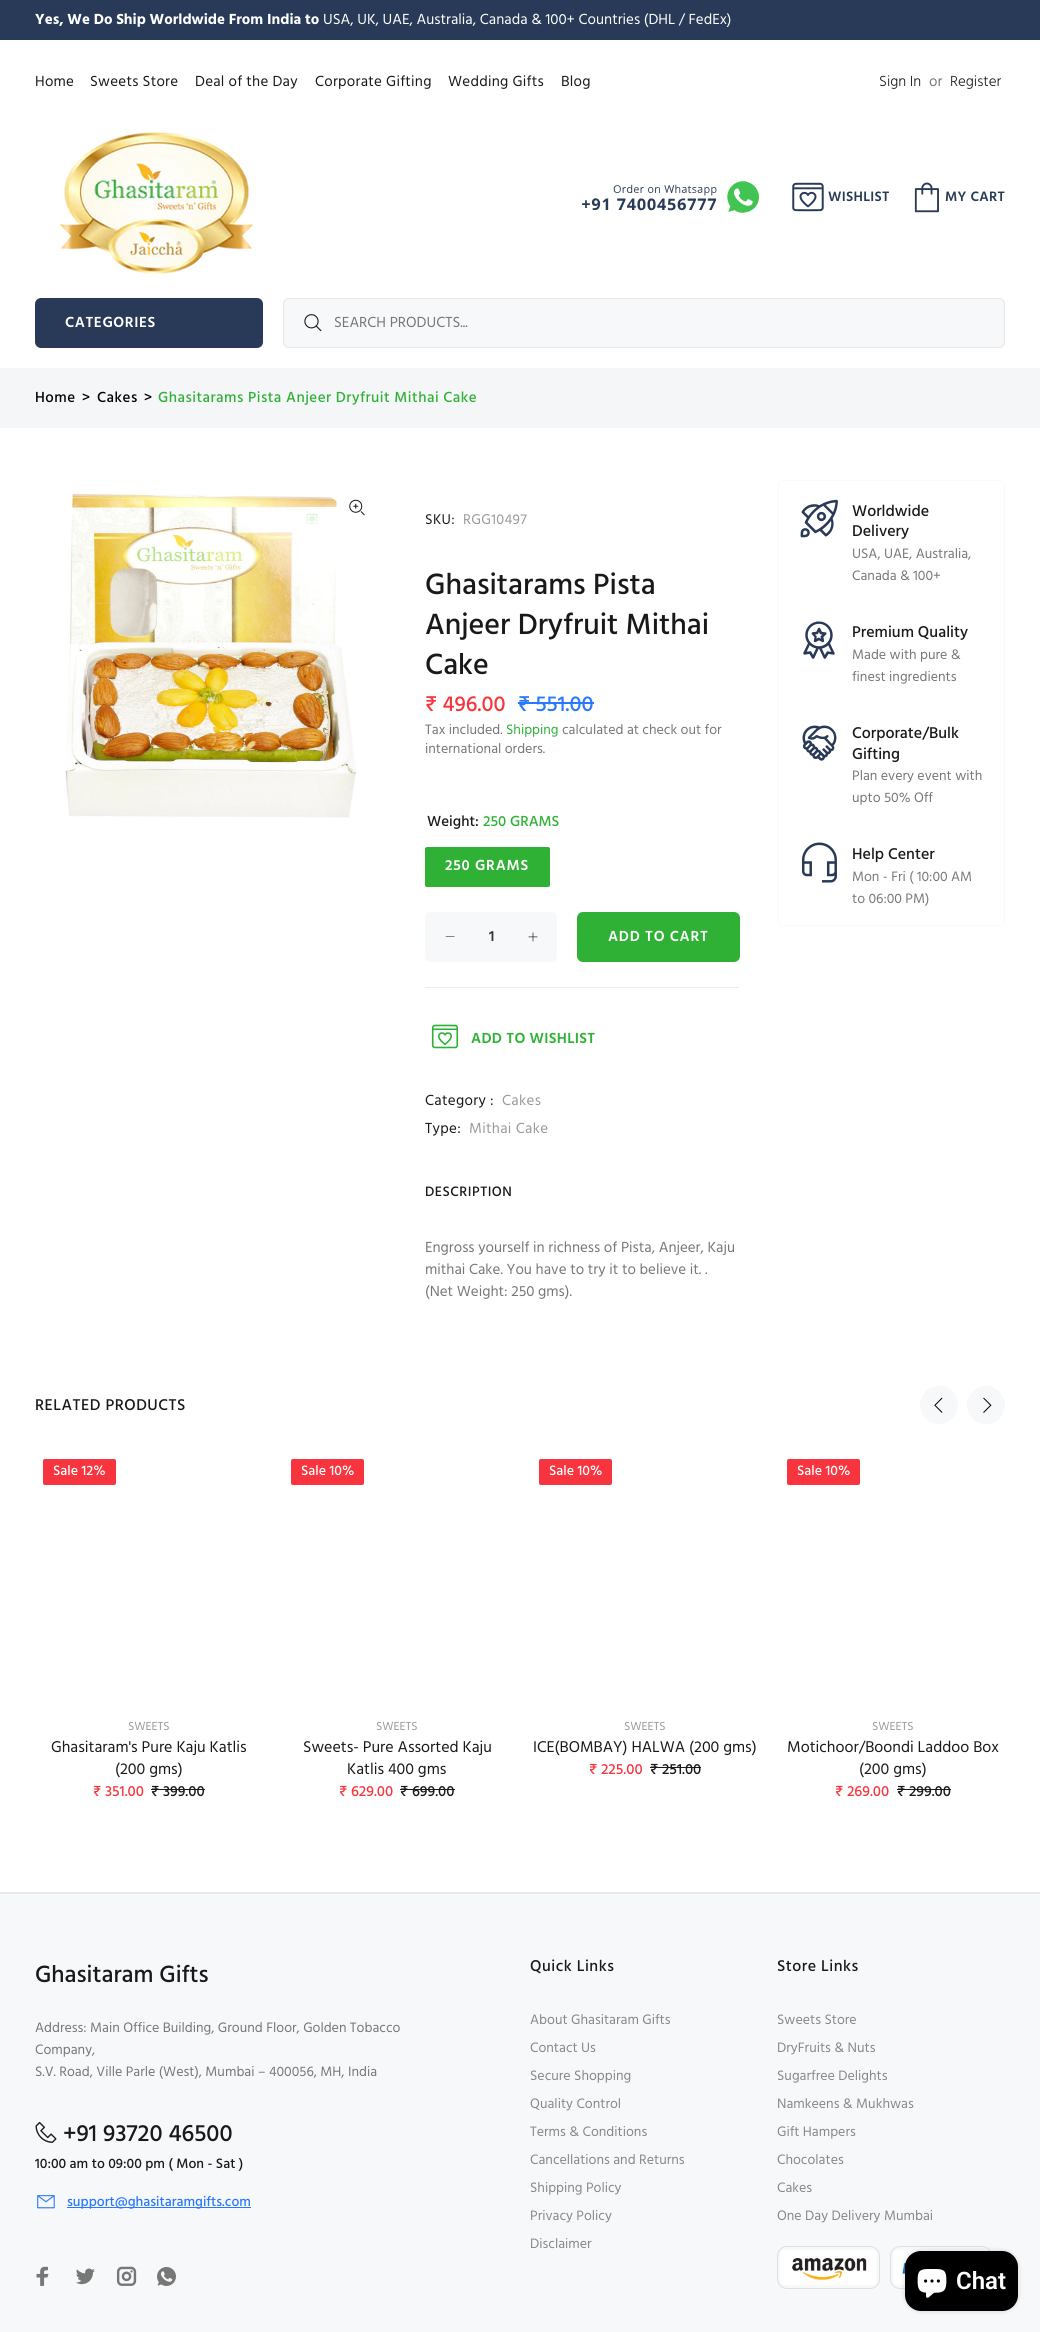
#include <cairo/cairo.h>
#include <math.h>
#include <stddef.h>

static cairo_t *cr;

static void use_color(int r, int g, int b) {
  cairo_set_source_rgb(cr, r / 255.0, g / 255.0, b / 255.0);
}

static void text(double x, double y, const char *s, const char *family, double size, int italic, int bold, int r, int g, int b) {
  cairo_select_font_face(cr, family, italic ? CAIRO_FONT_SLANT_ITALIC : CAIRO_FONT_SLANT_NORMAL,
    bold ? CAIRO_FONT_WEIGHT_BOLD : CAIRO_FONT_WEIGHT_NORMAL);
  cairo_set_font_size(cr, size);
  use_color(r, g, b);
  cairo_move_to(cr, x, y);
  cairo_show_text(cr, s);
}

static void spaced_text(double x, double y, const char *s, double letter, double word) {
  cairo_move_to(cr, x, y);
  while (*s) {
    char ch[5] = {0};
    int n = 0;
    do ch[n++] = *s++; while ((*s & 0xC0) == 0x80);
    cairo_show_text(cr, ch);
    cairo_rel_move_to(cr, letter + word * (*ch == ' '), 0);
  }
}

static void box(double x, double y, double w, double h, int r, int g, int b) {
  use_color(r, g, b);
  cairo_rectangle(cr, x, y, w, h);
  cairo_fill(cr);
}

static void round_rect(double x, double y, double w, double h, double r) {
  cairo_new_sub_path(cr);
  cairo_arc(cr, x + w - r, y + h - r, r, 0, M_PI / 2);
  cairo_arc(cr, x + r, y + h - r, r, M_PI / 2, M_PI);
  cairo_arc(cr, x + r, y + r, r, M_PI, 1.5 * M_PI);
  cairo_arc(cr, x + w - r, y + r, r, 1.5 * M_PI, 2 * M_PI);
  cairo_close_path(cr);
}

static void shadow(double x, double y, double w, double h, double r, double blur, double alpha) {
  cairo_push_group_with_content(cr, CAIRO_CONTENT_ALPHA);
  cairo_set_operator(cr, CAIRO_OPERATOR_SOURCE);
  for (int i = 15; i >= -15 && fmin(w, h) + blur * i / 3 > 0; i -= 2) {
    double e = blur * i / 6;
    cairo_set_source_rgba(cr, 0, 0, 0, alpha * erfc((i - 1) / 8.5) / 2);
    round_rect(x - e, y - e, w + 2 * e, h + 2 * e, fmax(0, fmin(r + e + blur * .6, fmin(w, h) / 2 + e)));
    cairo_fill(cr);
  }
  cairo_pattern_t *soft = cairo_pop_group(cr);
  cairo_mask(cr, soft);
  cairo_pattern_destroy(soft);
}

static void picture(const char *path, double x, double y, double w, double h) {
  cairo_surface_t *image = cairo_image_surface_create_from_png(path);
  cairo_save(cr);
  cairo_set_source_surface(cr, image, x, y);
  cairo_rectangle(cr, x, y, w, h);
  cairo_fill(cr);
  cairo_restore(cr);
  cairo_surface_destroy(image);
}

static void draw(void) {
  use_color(255, 255, 255);
  cairo_paint(cr);
  box(0, 0, 1040, 40, 41, 58, 88);
  picture("img_01.png", 59, 132, 194, 142);
  picture("img_02.png", 582, 181, 177, 32);
  picture("img_03.png", 792, 182, 32, 30);
  picture("img_04.png", 914, 182, 25, 31);
  round_rect(35, 298, 228, 50, 6);
  cairo_fill(cr);
  use_color(247, 248, 250);
  round_rect(283.5, 298.5, 721, 49, 5.5);
  cairo_fill_preserve(cr);
  use_color(233, 231, 231);
  cairo_set_line_width(cr, 1);
  cairo_stroke(cr);
  picture("img_05.png", 304, 314, 18, 18);
  box(0, 368, 1040, 60, 244, 246, 248);
  picture("img_06.png", 65, 493, 292, 325);
  picture("img_07.png", 349, 499, 16, 17);
  box(518, 702, 76, 2, 40, 121, 254);
  use_color(46, 177, 53);
  round_rect(425, 847, 125, 40, 2);
  cairo_fill(cr);
  use_color(247, 248, 250);
  round_rect(425, 912, 132, 50, 6);
  cairo_fill(cr);
  use_color(0, 0, 0);
  cairo_new_path(cr);
  cairo_move_to(cr, 454.5, 936.5);
  cairo_line_to(cr, 454.5, 937);
  cairo_line_to(cr, 445.5, 937);
  cairo_line_to(cr, 446, 936.5);
  cairo_close_path(cr);
  cairo_fill(cr);
  picture("img_08.png", 528, 932, 10, 10);
  use_color(46, 177, 53);
  round_rect(577, 912, 163, 50, 6);
  cairo_fill(cr);
  box(425, 987, 314, 1, 237, 237, 237);
  picture("img_09.png", 431, 1024, 28, 25);
  round_rect(778.5, 480.5, 226, 445, 5.5);
  use_color(255, 246, 252);
  cairo_stroke(cr);
  picture("img_10.png", 800, 499, 38, 39);
  picture("img_11.png", 803, 621, 32, 38);
  picture("img_12.png", 802, 725, 35, 36);
  picture("img_13.png", 801, 842, 36, 41);
  use_color(247, 248, 250);
  cairo_arc(cr, 939, 1405, 19, 0, 2 * M_PI);
  cairo_fill(cr);
  picture("img_14.png", 934, 1397, 9, 16);
  cairo_arc(cr, 986, 1405, 19, 0, 2 * M_PI);
  cairo_fill(cr);
  picture("img_15.png", 983, 1397, 9, 16);
  use_color(248, 53, 62);
  round_rect(43, 1459, 73, 26, 2);
  cairo_fill(cr);
  box(151, 1789, 54, 1, 25, 25, 25);
  use_color(248, 53, 62);
  round_rect(291, 1459, 73, 26, 2);
  cairo_fill(cr);
  box(400, 1789, 55, 1, 25, 25, 25);
  use_color(248, 53, 62);
  round_rect(539, 1459, 73, 26, 2);
  cairo_fill(cr);
  box(650, 1767, 51, 1, 25, 25, 25);
  use_color(248, 53, 62);
  round_rect(787, 1459, 73, 26, 2);
  cairo_fill(cr);
  box(897, 1789, 54, 1, 25, 25, 25);
  box(0, 1894, 1040, 438, 247, 248, 250);
  box(0, 1892, 1040, 2, 233, 231, 231);
  picture("img_16.png", 35, 2121, 22, 22);
  picture("img_17.png", 37, 2195, 18, 14);
  box(67, 2207, 184, 1, 40, 121, 254);
  picture("img_18.png", 36, 2266, 13, 20);
  picture("img_19.png", 76, 2268, 19, 17);
  picture("img_20.png", 116, 2266, 21, 20);
  picture("img_21.png", 157, 2267, 19, 19);
  round_rect(777.5, 2246.5, 102, 42, 9.5);
  use_color(222, 223, 225);
  cairo_stroke(cr);
  picture("img_22.png", 780, 2250, 97, 35);
  round_rect(890.5, 2246.5, 101, 42, 9.5);
  cairo_stroke(cr);
  picture("img_23.png", 893, 2250, 95, 35);
  use_color(0, 0, 0);
  shadow(905, 2251, 113, 60, 16, 2.5, 0.15);
  use_color(0, 0, 0);
  round_rect(905, 2251, 113, 60, 16);
  cairo_fill(cr);
  picture("img_24.png", 917, 2269, 30, 29);
  text(35, 24, "Yes, We Do Ship Worldwide From India to", "Hind", 15, 0, 1, 255, 255, 255);
  text(323, 24, "USA, UK, UAE, Australia, Canada & 100+ Countries (DHL / FedEx)", "Hind", 15, 0, 0, 255, 255, 255);
  use_color(25, 25, 25);
  spaced_text(35, 86, "Home", 0.25, 0);
  spaced_text(90, 86, "Sweets Store", 0.25, 0);
  spaced_text(195, 86, "Deal of the Day", 0.25, 0);
  spaced_text(315, 86, "Corporate Gifting", 0.25, 0);
  spaced_text(448, 86, "Wedding Gifts", 0.25, 0);
  spaced_text(561, 86, "Blog", 0.25, 0);
  text(879, 86, "Sign In", "Hind Light", 15, 0, 0, 25, 25, 25);
  text(929, 86, "or", "Hind", 15, 0, 0, 119, 119, 119);
  text(950, 86, "Register", "Hind Light", 15, 0, 0, 25, 25, 25);
  cairo_select_font_face(cr, "Hind SemiBold", CAIRO_FONT_SLANT_NORMAL, CAIRO_FONT_WEIGHT_NORMAL);
  cairo_set_font_size(cr, 14);
  use_color(41, 58, 88);
  spaced_text(828, 201, "WISHLIST", 0.3, 0);
  spaced_text(945, 201, "MY CART", 0.3, 0);
  cairo_set_font_size(cr, 15);
  use_color(255, 255, 255);
  spaced_text(65, 327, "CATEGORIES", 0.6, 0);
  text(334, 327, "SEARCH PRODUCTS...", "Hind", 15, 0, 0, 119, 119, 119);
  cairo_select_font_face(cr, "Hind Medium", CAIRO_FONT_SLANT_NORMAL, CAIRO_FONT_WEIGHT_NORMAL);
  use_color(0, 0, 0);
  spaced_text(35, 402, "Home", 0.5, 0);
  spaced_text(82, 402, ">", 0.5, 0);
  spaced_text(97, 402, "Cakes", 0.5, 0);
  spaced_text(144, 402, ">", 0.5, 0);
  use_color(46, 177, 53);
  spaced_text(158, 402, "Ghasitarams Pista Anjeer Dryfruit Mithai Cake", 0.5, 0);
  cairo_select_font_face(cr, "Hind", CAIRO_FONT_SLANT_NORMAL, CAIRO_FONT_WEIGHT_NORMAL);
  cairo_set_font_size(cr, 14.5);
  use_color(25, 25, 25);
  spaced_text(425, 524, "SKU:", 0.3, 0);
  use_color(153, 153, 153);
  spaced_text(463, 524, "RGG10497", 0.3, 0);
  text(425, 594, "Ghasitarams Pista", "Hind Medium", 30, 0, 0, 25, 25, 25);
  text(425, 634, "Anjeer Dryfruit Mithai", "Hind Medium", 30, 0, 0, 25, 25, 25);
  text(425, 674, "Cake", "Hind Medium", 30, 0, 0, 25, 25, 25);
  text(425, 711, "₹ 496.00", "Hind Medium", 22, 0, 0, 248, 53, 62);
  text(518, 711, "₹ 551.00", "Hind Medium", 22, 0, 0, 40, 121, 254);
  text(425, 734, "Tax included.", "Hind", 14, 0, 0, 119, 119, 119);
  text(506, 734, "Shipping", "Hind", 14, 0, 0, 46, 177, 53);
  text(562, 734, "calculated at check out for", "Hind", 14, 0, 0, 119, 119, 119);
  text(425, 753, "international orders.", "Hind", 14, 0, 0, 119, 119, 119);
  text(427, 826, "Weight:", "Hind Medium", 15, 0, 0, 25, 25, 25);
  text(483, 826, "250 GRAMS", "Hind Medium", 15, 0, 0, 46, 177, 53);
  cairo_select_font_face(cr, "Hind SemiBold", CAIRO_FONT_SLANT_NORMAL, CAIRO_FONT_WEIGHT_NORMAL);
  use_color(255, 255, 255);
  spaced_text(445, 870, "250 GRAMS", 0.75, 0);
  text(489, 941, "1", "Hind SemiBold", 15, 0, 0, 51, 51, 51);
  use_color(255, 255, 255);
  spaced_text(608, 941, "ADD TO CART", 0.75, 0);
  use_color(46, 177, 53);
  spaced_text(471, 1043, "ADD TO WISHLIST", 0.3, 0);
  cairo_select_font_face(cr, "Hind", CAIRO_FONT_SLANT_NORMAL, CAIRO_FONT_WEIGHT_NORMAL);
  use_color(25, 25, 25);
  spaced_text(425, 1105, "Category :", 0.3, 0);
  use_color(153, 153, 153);
  spaced_text(502, 1105, "Cakes", 0.3, 0);
  use_color(25, 25, 25);
  spaced_text(425, 1133, "Type:", 0.3, 0);
  use_color(153, 153, 153);
  spaced_text(469, 1133, "Mithai Cake", 0.3, 0);
  cairo_select_font_face(cr, "Hind Medium", CAIRO_FONT_SLANT_NORMAL, CAIRO_FONT_WEIGHT_NORMAL);
  cairo_set_font_size(cr, 14);
  use_color(25, 25, 25);
  spaced_text(425, 1196, "DESCRIPTION", 0.5, 0);
  text(425, 1252, "Engross yourself in richness of Pista, Anjeer, Kaju", "Hind", 15, 0, 0, 119, 119, 119);
  text(425, 1274, "mithai Cake. You have to try it to believe it. .", "Hind", 15, 0, 0, 119, 119, 119);
  text(425, 1296, "(Net Weight: 250 gms).", "Hind", 15, 0, 0, 119, 119, 119);
  text(852, 516, "Worldwide", "Hind Medium", 16, 0, 0, 25, 25, 25);
  text(852, 536, "Delivery", "Hind Medium", 16, 0, 0, 25, 25, 25);
  text(852, 558, "USA, UAE, Australia,", "Hind", 14, 0, 0, 119, 119, 119);
  text(852, 580, "Canada & 100+", "Hind", 14, 0, 0, 119, 119, 119);
  text(852, 637, "Premium Quality", "Hind Medium", 16, 0, 0, 25, 25, 25);
  text(852, 659, "Made with pure &", "Hind", 14, 0, 0, 119, 119, 119);
  text(852, 681, "finest ingredients", "Hind", 14, 0, 0, 119, 119, 119);
  text(852, 738, "Corporate/Bulk", "Hind Medium", 16, 0, 0, 25, 25, 25);
  text(852, 759, "Gifting", "Hind Medium", 16, 0, 0, 25, 25, 25);
  text(852, 780, "Plan every event with", "Hind", 14, 0, 0, 119, 119, 119);
  text(852, 802, "upto 50% Off", "Hind", 14, 0, 0, 119, 119, 119);
  text(852, 859, "Help Center", "Hind Medium", 16, 0, 0, 25, 25, 25);
  text(852, 881, "Mon - Fri ( 10:00 AM", "Hind", 14, 0, 0, 119, 119, 119);
  text(852, 903, "to 06:00 PM)", "Hind", 14, 0, 0, 119, 119, 119);
  cairo_select_font_face(cr, "Hind Medium", CAIRO_FONT_SLANT_NORMAL, CAIRO_FONT_WEIGHT_NORMAL);
  cairo_set_font_size(cr, 16);
  use_color(25, 25, 25);
  spaced_text(35, 1410, "RELATED PRODUCTS", 0.5, 0);
  text(53, 1475, "Sale 12%", "Hind Medium", 14, 0, 0, 255, 255, 255);
  text(128, 1730, "SWEETS", "Hind", 12, 0, 0, 153, 153, 153);
  text(51, 1752, "Ghasitaram's Pure Kaju Katlis", "Hind", 16, 0, 0, 25, 25, 25);
  text(115, 1774, "(200 gms)", "Hind", 16, 0, 0, 25, 25, 25);
  text(93, 1796, "₹ 351.00", "Hind Medium", 15, 0, 0, 248, 53, 62);
  text(151, 1796, "₹ 399.00", "Hind Medium", 15, 0, 0, 25, 25, 25);
  text(301, 1475, "Sale 10%", "Hind Medium", 14, 0, 0, 255, 255, 255);
  text(376, 1730, "SWEETS", "Hind", 12, 0, 0, 153, 153, 153);
  text(303, 1752, "Sweets- Pure Assorted Kaju", "Hind", 16, 0, 0, 25, 25, 25);
  text(347, 1774, "Katlis 400 gms", "Hind", 16, 0, 0, 25, 25, 25);
  text(339, 1796, "₹ 629.00", "Hind Medium", 15, 0, 0, 248, 53, 62);
  text(400, 1796, "₹ 699.00", "Hind Medium", 15, 0, 0, 25, 25, 25);
  text(549, 1475, "Sale 10%", "Hind Medium", 14, 0, 0, 255, 255, 255);
  text(624, 1730, "SWEETS", "Hind", 12, 0, 0, 153, 153, 153);
  text(533, 1752, "ICE(BOMBAY) HALWA (200 gms)", "Hind", 16, 0, 0, 25, 25, 25);
  text(589, 1774, "₹ 225.00", "Hind Medium", 15, 0, 0, 248, 53, 62);
  text(650, 1774, "₹ 251.00", "Hind Medium", 15, 0, 0, 25, 25, 25);
  text(797, 1475, "Sale 10%", "Hind Medium", 14, 0, 0, 255, 255, 255);
  text(872, 1730, "SWEETS", "Hind", 12, 0, 0, 153, 153, 153);
  text(787, 1752, "Motichoor/Boondi Laddoo Box", "Hind", 16, 0, 0, 25, 25, 25);
  text(859, 1774, "(200 gms)", "Hind", 16, 0, 0, 25, 25, 25);
  text(835, 1796, "₹ 269.00", "Hind Medium", 15, 0, 0, 248, 53, 62);
  text(897, 1796, "₹ 299.00", "Hind Medium", 15, 0, 0, 25, 25, 25);
  text(35, 1982, "Ghasitaram Gifts", "Hind Medium", 24, 0, 0, 25, 25, 25);
  text(35, 2032, "Address: Main Office Building, Ground Floor, Golden Tobacco", "Hind", 14, 0, 0, 119, 119, 119);
  text(35, 2054, "Company,", "Hind", 14, 0, 0, 119, 119, 119);
  text(35, 2076, "S.V. Road, Ville Parle (West), Mumbai – 400056, MH, India", "Hind", 14, 0, 0, 119, 119, 119);
  text(63, 2141, "+91 93720 46500", "Hind Medium", 24, 0, 0, 25, 25, 25);
  text(35, 2168, "10:00 am to 09:00 pm ( Mon - Sat )", "Hind Medium", 14, 0, 0, 25, 25, 25);
  text(67, 2206, "support@ghasitaramgifts.com", "Hind Medium", 14, 0, 0, 40, 121, 254);
  cairo_set_font_size(cr, 16);
  use_color(25, 25, 25);
  spaced_text(530, 1971, "Quick Links", 0.5, 0);
  text(530, 2024, "About Ghasitaram Gifts", "Hind", 14, 0, 0, 136, 136, 136);
  text(530, 2052, "Contact Us", "Hind", 14, 0, 0, 136, 136, 136);
  text(530, 2080, "Secure Shopping", "Hind", 14, 0, 0, 136, 136, 136);
  text(530, 2108, "Quality Control", "Hind", 14, 0, 0, 136, 136, 136);
  text(530, 2136, "Terms & Conditions", "Hind", 14, 0, 0, 136, 136, 136);
  text(530, 2164, "Cancellations and Returns", "Hind", 14, 0, 0, 136, 136, 136);
  text(530, 2192, "Shipping Policy", "Hind", 14, 0, 0, 136, 136, 136);
  text(530, 2220, "Privacy Policy", "Hind", 14, 0, 0, 136, 136, 136);
  text(530, 2248, "Disclaimer", "Hind", 14, 0, 0, 136, 136, 136);
  cairo_select_font_face(cr, "Hind Medium", CAIRO_FONT_SLANT_NORMAL, CAIRO_FONT_WEIGHT_NORMAL);
  cairo_set_font_size(cr, 16);
  use_color(25, 25, 25);
  spaced_text(777, 1971, "Store Links", 0.5, 0);
  text(777, 2024, "Sweets Store", "Hind", 14, 0, 0, 136, 136, 136);
  text(777, 2052, "DryFruits & Nuts", "Hind", 14, 0, 0, 136, 136, 136);
  text(777, 2080, "Sugarfree Delights", "Hind", 14, 0, 0, 136, 136, 136);
  text(777, 2108, "Namkeens & Mukhwas", "Hind", 14, 0, 0, 136, 136, 136);
  text(777, 2136, "Gift Hampers", "Hind", 14, 0, 0, 136, 136, 136);
  text(777, 2164, "Chocolates", "Hind", 14, 0, 0, 136, 136, 136);
  text(777, 2192, "Cakes", "Hind", 14, 0, 0, 136, 136, 136);
  text(777, 2220, "One Day Delivery Mumbai", "Hind", 14, 0, 0, 136, 136, 136);
  text(956, 2289, "Chat", "Roboto SemiBold", 24, 0, 0, 255, 255, 255);
}

int main(void) {
  cairo_surface_t *surface = cairo_image_surface_create(CAIRO_FORMAT_RGB24, 1040, 2332);
  cr = cairo_create(surface);
  cairo_font_options_t *options = cairo_font_options_create();
  cairo_font_options_set_hint_metrics(options, CAIRO_HINT_METRICS_OFF);
  cairo_font_options_set_hint_style(options, CAIRO_HINT_STYLE_NONE);
  cairo_set_font_options(cr, options);
  cairo_set_miter_limit(cr, 4);
  draw();
  cairo_surface_write_to_png(surface, "out.png");
  cairo_font_options_destroy(options);
  cairo_destroy(cr);
  cairo_surface_destroy(surface);
  return 0;
}
